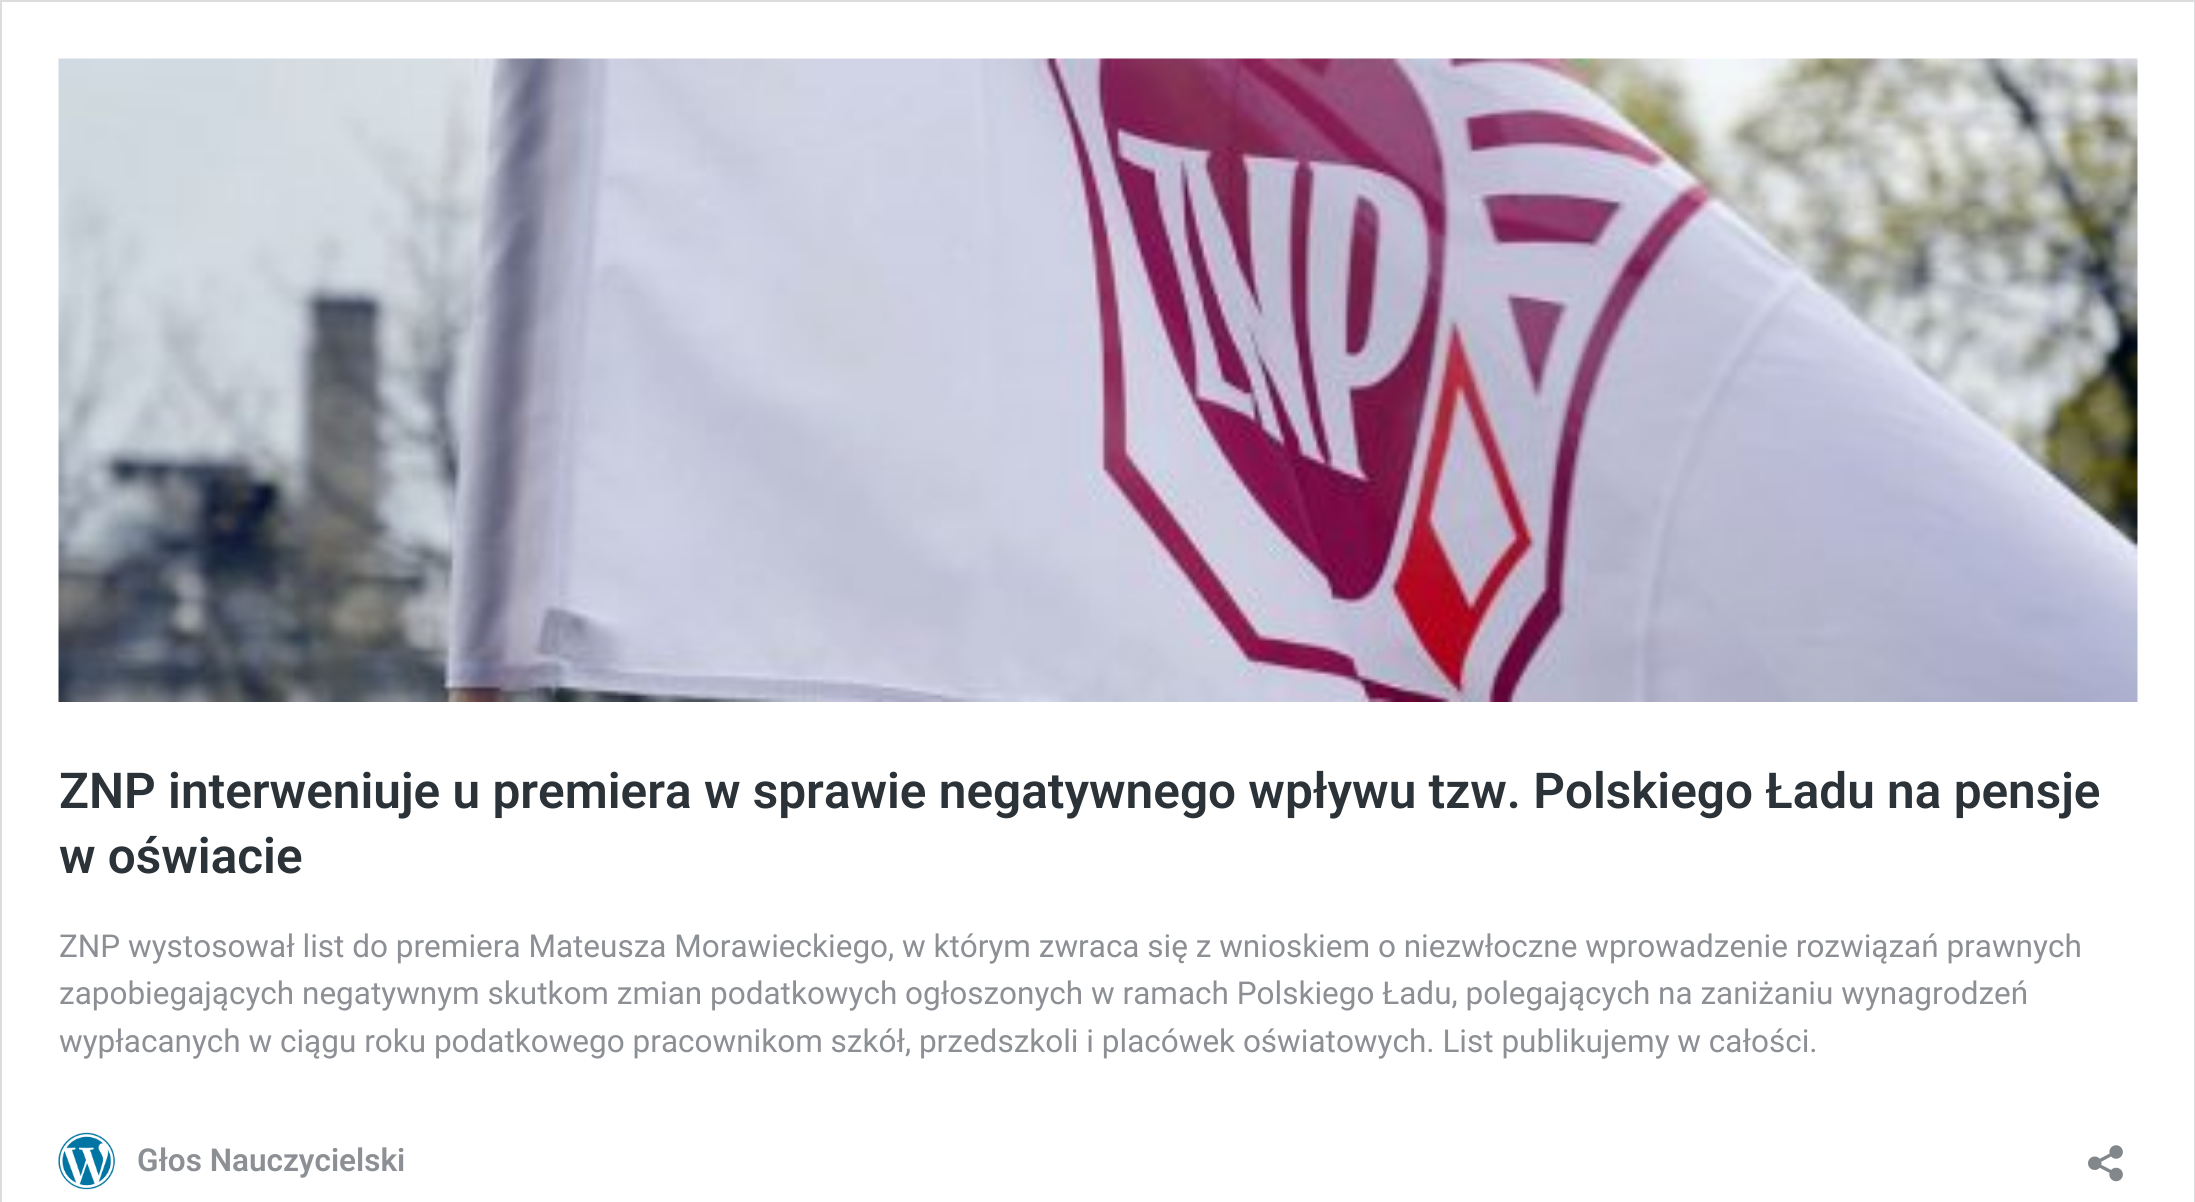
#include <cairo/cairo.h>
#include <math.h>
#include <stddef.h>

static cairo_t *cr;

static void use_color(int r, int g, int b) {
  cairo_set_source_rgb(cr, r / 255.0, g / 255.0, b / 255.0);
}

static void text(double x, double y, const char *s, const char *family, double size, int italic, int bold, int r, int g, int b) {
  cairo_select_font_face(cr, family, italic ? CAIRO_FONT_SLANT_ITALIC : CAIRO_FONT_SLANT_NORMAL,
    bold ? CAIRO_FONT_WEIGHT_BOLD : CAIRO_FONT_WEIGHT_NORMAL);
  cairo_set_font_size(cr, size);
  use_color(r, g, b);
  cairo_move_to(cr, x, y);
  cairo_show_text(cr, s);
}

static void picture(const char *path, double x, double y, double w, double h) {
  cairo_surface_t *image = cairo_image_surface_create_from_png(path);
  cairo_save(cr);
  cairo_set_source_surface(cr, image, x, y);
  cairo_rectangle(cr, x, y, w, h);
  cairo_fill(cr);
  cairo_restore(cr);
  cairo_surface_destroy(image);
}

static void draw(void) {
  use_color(255, 255, 255);
  cairo_paint(cr);
  cairo_rectangle(cr, 1, 1, 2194, 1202);
  use_color(220, 220, 222);
  cairo_stroke(cr);
  picture("img_01.png", 58, 58, 2080, 644);
  picture("img_02.png", 58, 1132, 57, 58);
  picture("img_03.png", 2088, 1145, 35, 37);
  text(59, 808, "ZNP interweniuje u premiera w sprawie negatywnego wpływu tzw. Polskiego Ładu na pensje", "Roboto SemiBold", 49.5, 0, 0, 44, 51, 56);
  text(59, 873, "w oświacie", "Roboto SemiBold", 49.5, 0, 0, 44, 51, 56);
  text(59, 957, "ZNP wystosował list do premiera Mateusza Morawieckiego, w którym zwraca się z wnioskiem o niezwłoczne wprowadzenie rozwiązań prawnych", "Roboto", 31.5, 0, 0, 140, 143, 148);
  text(59, 1004, "zapobiegających negatywnym skutkom zmian podatkowych ogłoszonych w ramach Polskiego Ładu, polegających na zaniżaniu wynagrodzeń", "Roboto", 31.5, 0, 0, 140, 143, 148);
  text(59, 1052, "wypłacanych w ciągu roku podatkowego pracownikom szkół, przedszkoli i placówek oświatowych. List publikujemy w całości.", "Roboto", 31.5, 0, 0, 140, 143, 148);
  text(137, 1171, "Głos Nauczycielski", "Roboto SemiBold", 31.5, 0, 0, 140, 143, 148);
}

int main(void) {
  cairo_surface_t *surface = cairo_image_surface_create(CAIRO_FORMAT_RGB24, 2195, 1202);
  cr = cairo_create(surface);
  cairo_font_options_t *options = cairo_font_options_create();
  cairo_font_options_set_hint_metrics(options, CAIRO_HINT_METRICS_OFF);
  cairo_font_options_set_hint_style(options, CAIRO_HINT_STYLE_NONE);
  cairo_set_font_options(cr, options);
  cairo_set_miter_limit(cr, 4);
  draw();
  cairo_surface_write_to_png(surface, "out.png");
  cairo_font_options_destroy(options);
  cairo_destroy(cr);
  cairo_surface_destroy(surface);
  return 0;
}
